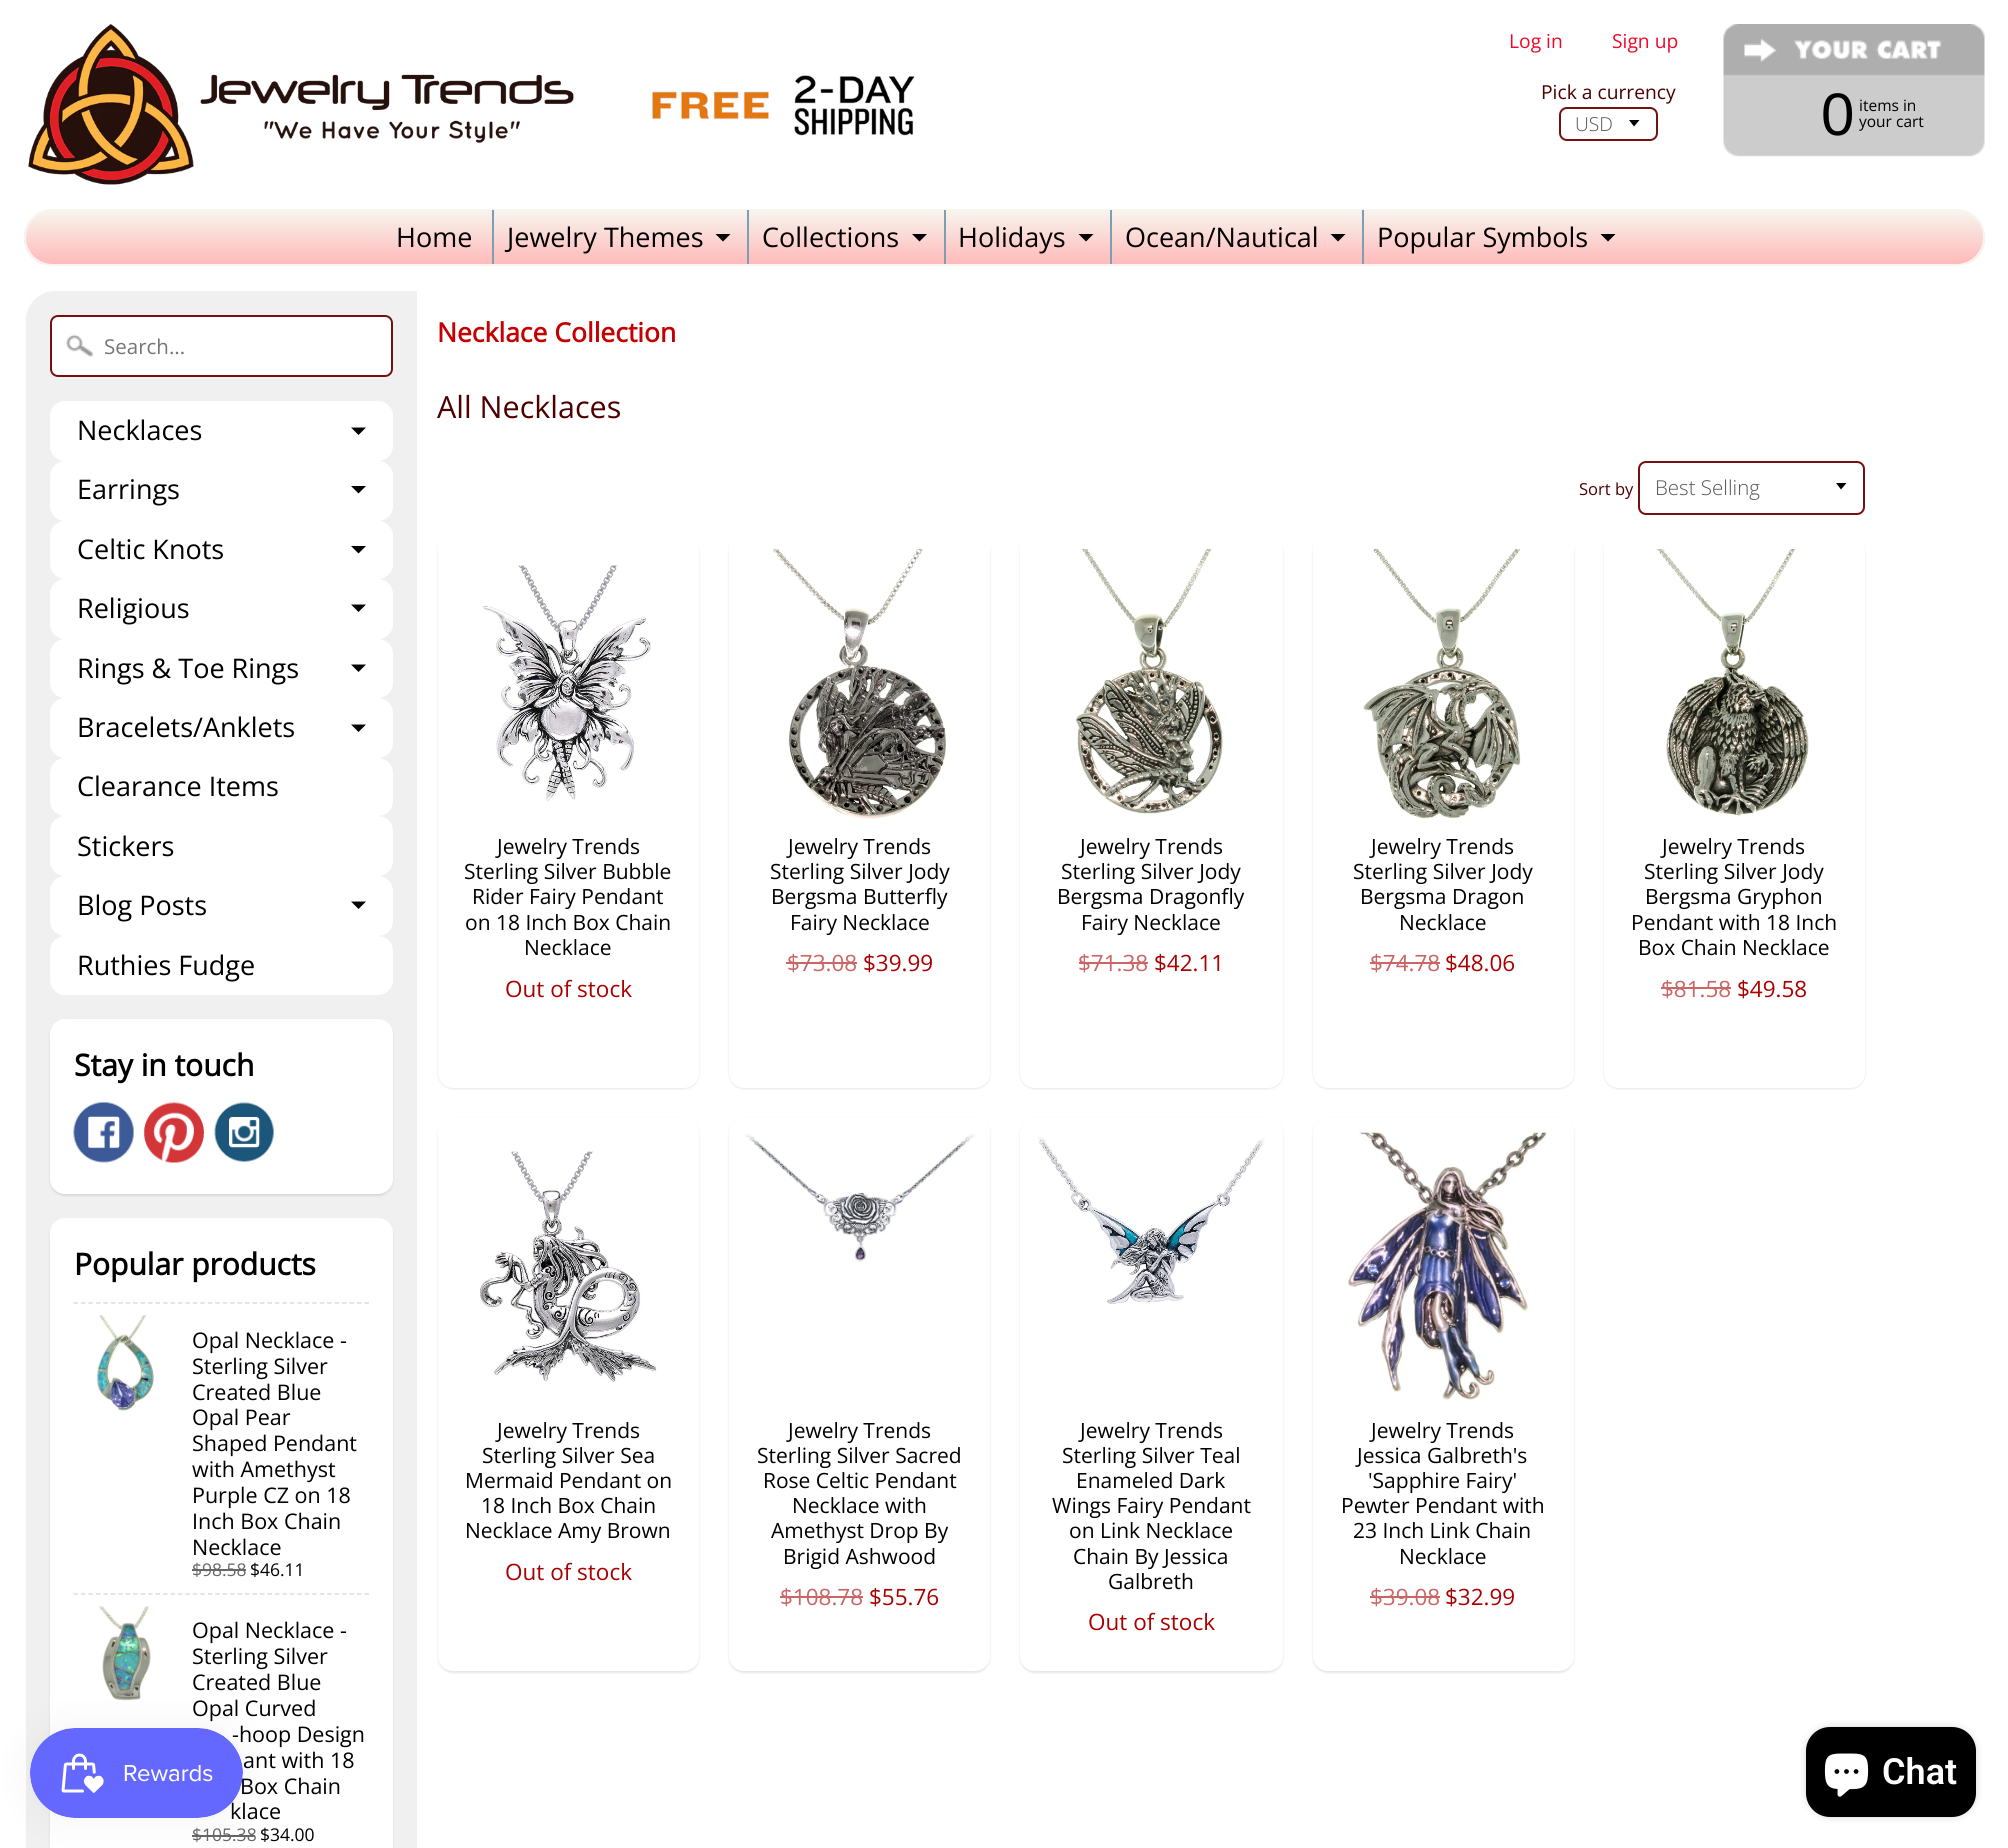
#include <cairo/cairo.h>
#include <math.h>
#include <stddef.h>

static cairo_t *cr;

static void use_color(int r, int g, int b) {
  cairo_set_source_rgb(cr, r / 255.0, g / 255.0, b / 255.0);
}

static void text(double x, double y, const char *s, const char *family, double size, int italic, int bold, int r, int g, int b) {
  cairo_select_font_face(cr, family, italic ? CAIRO_FONT_SLANT_ITALIC : CAIRO_FONT_SLANT_NORMAL,
    bold ? CAIRO_FONT_WEIGHT_BOLD : CAIRO_FONT_WEIGHT_NORMAL);
  cairo_set_font_size(cr, size);
  use_color(r, g, b);
  cairo_move_to(cr, x, y);
  cairo_show_text(cr, s);
}

static void box(double x, double y, double w, double h, int r, int g, int b) {
  use_color(r, g, b);
  cairo_rectangle(cr, x, y, w, h);
  cairo_fill(cr);
}

static void round_rect(double x, double y, double w, double h, double r) {
  cairo_new_sub_path(cr);
  cairo_arc(cr, x + w - r, y + h - r, r, 0, M_PI / 2);
  cairo_arc(cr, x + r, y + h - r, r, M_PI / 2, M_PI);
  cairo_arc(cr, x + r, y + r, r, M_PI, 1.5 * M_PI);
  cairo_arc(cr, x + w - r, y + r, r, 1.5 * M_PI, 2 * M_PI);
  cairo_close_path(cr);
}

static void shadow(double x, double y, double w, double h, double r, double blur, double alpha) {
  cairo_push_group_with_content(cr, CAIRO_CONTENT_ALPHA);
  cairo_set_operator(cr, CAIRO_OPERATOR_SOURCE);
  for (int i = 15; i >= -15 && fmin(w, h) + blur * i / 3 > 0; i -= 2) {
    double e = blur * i / 6;
    cairo_set_source_rgba(cr, 0, 0, 0, alpha * erfc((i - 1) / 8.5) / 2);
    round_rect(x - e, y - e, w + 2 * e, h + 2 * e, fmax(0, fmin(r + e + blur * .6, fmin(w, h) / 2 + e)));
    cairo_fill(cr);
  }
  cairo_pattern_t *soft = cairo_pop_group(cr);
  cairo_mask(cr, soft);
  cairo_pattern_destroy(soft);
}

static void picture(const char *path, double x, double y, double w, double h) {
  cairo_surface_t *image = cairo_image_surface_create_from_png(path);
  cairo_save(cr);
  cairo_set_source_surface(cr, image, x, y);
  cairo_rectangle(cr, x, y, w, h);
  cairo_fill(cr);
  cairo_restore(cr);
  cairo_surface_destroy(image);
}

static void draw(void) {
  cairo_pattern_t *gradient;
  use_color(255, 255, 255);
  cairo_paint(cr);
  picture("img_01.png", 28, 24, 888, 161);
  use_color(0, 0, 0);
  cairo_new_path(cr);
  cairo_move_to(cr, 1629, 120);
  cairo_line_to(cr, 1634, 126.5);
  cairo_line_to(cr, 1639.5, 120);
  cairo_close_path(cr);
  cairo_fill(cr);
  round_rect(1560, 108, 97, 32, 7);
  use_color(116, 16, 16);
  cairo_stroke(cr);
  picture("img_02.png", 1723, 24, 262, 133);
  cairo_save(cr);
  round_rect(24, 209, 1961, 57, 28.5);
  cairo_clip(cr);
  gradient = cairo_pattern_create_linear(1004, 210, 1004, 264);
  cairo_pattern_add_color_stop_rgba(gradient, 0, 0.969, 0.961, 0.933, 1);
  cairo_pattern_add_color_stop_rgba(gradient, 1, 1, 0.729, 0.729, 1);
  cairo_set_source(cr, gradient);
  cairo_pattern_destroy(gradient);
  cairo_rectangle(cr, 24, 210, 1961, 54);
  cairo_fill(cr);
  cairo_restore(cr);
  round_rect(25, 210, 1959, 55, 27.5);
  use_color(247, 245, 238);
  cairo_stroke(cr);
  box(492, 210, 2, 54, 125, 159, 177);
  use_color(0, 0, 0);
  cairo_new_path(cr);
  cairo_move_to(cr, 715.5, 234);
  cairo_line_to(cr, 730.5, 234);
  cairo_line_to(cr, 723, 241.5);
  cairo_close_path(cr);
  cairo_fill(cr);
  box(747, 210, 2, 54, 125, 159, 177);
  use_color(0, 0, 0);
  cairo_new_path(cr);
  cairo_move_to(cr, 912, 234);
  cairo_line_to(cr, 927, 234);
  cairo_line_to(cr, 919.5, 241.5);
  cairo_close_path(cr);
  cairo_fill(cr);
  box(944, 210, 2, 54, 125, 159, 177);
  use_color(0, 0, 0);
  cairo_new_path(cr);
  cairo_move_to(cr, 1078.5, 234);
  cairo_line_to(cr, 1093.5, 234);
  cairo_line_to(cr, 1086, 241.5);
  cairo_close_path(cr);
  cairo_fill(cr);
  box(1110, 210, 2, 54, 125, 159, 177);
  use_color(0, 0, 0);
  cairo_new_path(cr);
  cairo_move_to(cr, 1330.5, 234);
  cairo_line_to(cr, 1345.5, 234);
  cairo_line_to(cr, 1338, 241.5);
  cairo_close_path(cr);
  cairo_fill(cr);
  box(1362, 210, 2, 54, 125, 159, 177);
  use_color(0, 0, 0);
  cairo_new_path(cr);
  cairo_move_to(cr, 1600.5, 234);
  cairo_line_to(cr, 1615.5, 234);
  cairo_line_to(cr, 1608, 241.5);
  cairo_close_path(cr);
  cairo_fill(cr);
  use_color(240, 240, 240);
  cairo_new_path(cr);
  cairo_move_to(cr, 55, 291);
  cairo_line_to(cr, 417, 291);
  cairo_line_to(cr, 417, 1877);
  cairo_line_to(cr, 55, 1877);
  cairo_curve_to(cr, 39, 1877, 26, 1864, 26, 1848);
  cairo_line_to(cr, 26, 320);
  cairo_curve_to(cr, 26, 304, 39, 291, 55, 291);
  cairo_close_path(cr);
  cairo_fill(cr);
  use_color(255, 255, 255);
  round_rect(50, 315, 343, 62, 8);
  cairo_fill(cr);
  picture("img_03.png", 66, 334, 27, 23);
  round_rect(51, 316, 341, 60, 7);
  use_color(116, 16, 16);
  cairo_stroke(cr);
  use_color(255, 255, 255);
  round_rect(50, 401, 343, 60, 15);
  cairo_fill(cr);
  use_color(0, 0, 0);
  cairo_new_path(cr);
  cairo_move_to(cr, 351, 427.5);
  cairo_line_to(cr, 366, 427.5);
  cairo_line_to(cr, 358.5, 435);
  cairo_close_path(cr);
  cairo_fill(cr);
  use_color(255, 255, 255);
  round_rect(50, 461, 343, 60, 15);
  cairo_fill(cr);
  use_color(0, 0, 0);
  cairo_new_path(cr);
  cairo_move_to(cr, 351, 486);
  cairo_line_to(cr, 366, 486);
  cairo_line_to(cr, 358.5, 493.5);
  cairo_close_path(cr);
  cairo_fill(cr);
  use_color(255, 255, 255);
  round_rect(50, 521, 343, 58, 15);
  cairo_fill(cr);
  use_color(0, 0, 0);
  cairo_new_path(cr);
  cairo_move_to(cr, 351, 546);
  cairo_line_to(cr, 366, 546);
  cairo_line_to(cr, 358.5, 553.5);
  cairo_close_path(cr);
  cairo_fill(cr);
  use_color(255, 255, 255);
  round_rect(50, 579, 343, 60, 15);
  cairo_fill(cr);
  use_color(0, 0, 0);
  cairo_new_path(cr);
  cairo_move_to(cr, 351, 604.5);
  cairo_line_to(cr, 366, 604.5);
  cairo_line_to(cr, 358.5, 612);
  cairo_close_path(cr);
  cairo_fill(cr);
  use_color(255, 255, 255);
  round_rect(50, 639, 343, 59, 15);
  cairo_fill(cr);
  use_color(0, 0, 0);
  cairo_new_path(cr);
  cairo_move_to(cr, 351, 664.5);
  cairo_line_to(cr, 366, 664.5);
  cairo_line_to(cr, 358.5, 672);
  cairo_close_path(cr);
  cairo_fill(cr);
  use_color(255, 255, 255);
  round_rect(50, 698, 343, 60, 15);
  cairo_fill(cr);
  use_color(0, 0, 0);
  cairo_new_path(cr);
  cairo_move_to(cr, 351, 724.5);
  cairo_line_to(cr, 366, 724.5);
  cairo_line_to(cr, 358.5, 732);
  cairo_close_path(cr);
  cairo_fill(cr);
  use_color(255, 255, 255);
  round_rect(50, 758, 343, 58, 15);
  cairo_fill(cr);
  round_rect(50, 816, 343, 60, 15);
  cairo_fill(cr);
  round_rect(50, 876, 343, 60, 15);
  cairo_fill(cr);
  use_color(0, 0, 0);
  cairo_new_path(cr);
  cairo_move_to(cr, 351, 901.5);
  cairo_line_to(cr, 366, 901.5);
  cairo_line_to(cr, 358.5, 909);
  cairo_close_path(cr);
  cairo_fill(cr);
  use_color(255, 255, 255);
  round_rect(50, 936, 343, 59, 15);
  cairo_fill(cr);
  use_color(0, 0, 0);
  shadow(50, 1020, 343, 176, 15, 1, 0.1);
  use_color(255, 255, 255);
  round_rect(50, 1019, 343, 175, 15);
  cairo_fill(cr);
  picture("img_04.png", 73, 1102, 61, 61);
  picture("img_05.png", 144, 1102, 60, 61);
  picture("img_06.png", 214, 1102, 60, 60);
  use_color(0, 0, 0);
  shadow(50, 1220, 343, 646, 15, 1, 0.1);
  use_color(255, 255, 255);
  round_rect(50, 1218, 343, 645, 15);
  cairo_fill(cr);
  cairo_new_path(cr);
  cairo_move_to(cr, 73.5, 1303);
  cairo_line_to(cr, 369, 1303);
  use_color(221, 221, 221);
  cairo_set_line_width(cr, 1.5);
  cairo_set_dash(cr, (double[]){4.5, 2.96}, 2, 0);
  cairo_stroke(cr);
  picture("img_07.png", 96, 1315, 58, 96);
  box(192, 1569, 54, 2, 102, 102, 102);
  cairo_new_path(cr);
  cairo_move_to(cr, 73.5, 1594);
  cairo_line_to(cr, 369, 1594);
  use_color(221, 221, 221);
  cairo_stroke(cr);
  picture("img_08.png", 98, 1606, 54, 95);
  box(192, 1835, 63, 2, 102, 102, 102);
  use_color(0, 0, 0);
  cairo_new_path(cr);
  cairo_move_to(cr, 1836, 483);
  cairo_line_to(cr, 1841, 489.5);
  cairo_line_to(cr, 1846.5, 483);
  cairo_close_path(cr);
  cairo_fill(cr);
  round_rect(1639, 462, 225, 52, 7);
  use_color(116, 16, 16);
  cairo_set_line_width(cr, 2);
  cairo_set_dash(cr, NULL, 0, 0);
  cairo_stroke(cr);
  use_color(0, 0, 0);
  shadow(438, 536, 261, 553, 15, 1, 0.1);
  use_color(255, 255, 255);
  round_rect(438, 534, 261, 554, 15);
  cairo_fill(cr);
  picture("img_09.png", 482, 565, 169, 237);
  use_color(0, 0, 0);
  shadow(729, 536, 261, 553, 15, 1, 0.1);
  use_color(255, 255, 255);
  round_rect(729, 534, 261, 554, 15);
  cairo_fill(cr);
  picture("img_10.png", 773, 549, 174, 270);
  box(786, 962, 71, 2, 204, 102, 102);
  use_color(0, 0, 0);
  shadow(1020, 536, 263, 553, 15, 1, 0.1);
  use_color(255, 255, 255);
  round_rect(1020, 534, 263, 554, 15);
  cairo_fill(cr);
  picture("img_11.png", 1075, 549, 152, 270);
  box(1079, 962, 69, 2, 204, 102, 102);
  use_color(0, 0, 0);
  shadow(1313, 536, 261, 553, 15, 1, 0.1);
  use_color(255, 255, 255);
  round_rect(1313, 534, 261, 554, 15);
  cairo_fill(cr);
  picture("img_12.png", 1363, 549, 158, 270);
  box(1370, 962, 70, 2, 204, 102, 102);
  use_color(0, 0, 0);
  shadow(1604, 536, 261, 553, 15, 1, 0.1);
  use_color(255, 255, 255);
  round_rect(1604, 534, 261, 554, 15);
  cairo_fill(cr);
  picture("img_13.png", 1656, 549, 153, 270);
  box(1661, 987, 70, 2, 204, 102, 102);
  use_color(0, 0, 0);
  shadow(438, 1119, 261, 554, 15, 1, 0.1);
  use_color(255, 255, 255);
  round_rect(438, 1118, 261, 553, 15);
  cairo_fill(cr);
  picture("img_14.png", 480, 1151, 177, 231);
  use_color(0, 0, 0);
  shadow(729, 1119, 261, 554, 15, 1, 0.1);
  use_color(255, 255, 255);
  round_rect(729, 1118, 261, 553, 15);
  cairo_fill(cr);
  picture("img_15.png", 745, 1134, 230, 128);
  box(780, 1596, 83, 2, 204, 102, 102);
  use_color(0, 0, 0);
  shadow(1020, 1119, 263, 554, 15, 1, 0.1);
  use_color(255, 255, 255);
  round_rect(1020, 1118, 263, 553, 15);
  cairo_fill(cr);
  picture("img_16.png", 1038, 1136, 227, 168);
  use_color(0, 0, 0);
  shadow(1313, 1119, 261, 554, 15, 1, 0.1);
  use_color(255, 255, 255);
  round_rect(1313, 1118, 261, 553, 15);
  cairo_fill(cr);
  picture("img_17.png", 1346, 1132, 201, 270);
  box(1370, 1596, 70, 2, 204, 102, 102);
  use_color(0, 0, 0);
  shadow(30, 1728, 213, 90, 45, 19, 0.05);
  shadow(1806, 1727, 170, 90, 24, 4, 0.15);
  use_color(0, 0, 0);
  round_rect(1806, 1727, 170, 90, 24);
  cairo_fill(cr);
  picture("img_19.png", 1824, 1753, 45, 44);
  text(1509, 48, "Log in", "Open Sans", 19.25, 0, 0, 239, 9, 42);
  text(1612, 48, "Sign up", "Open Sans", 19.25, 0, 0, 239, 9, 42);
  text(1541, 99, "Pick a currency", "Open Sans", 19.25, 0, 0, 76, 0, 0);
  text(1575, 131, "USD", "Open Sans Light", 19.25, 0, 0, 85, 85, 85);
  text(1821, 135, "0", "Liberation Sans", 60, 0, 0, 0, 0, 0);
  text(1859, 111, "items in", "Open Sans", 15.5, 0, 0, 0, 0, 0);
  text(1859, 127, "your cart", "Open Sans", 15.5, 0, 0, 0, 0, 0);
  text(396, 247, "Home", "Open Sans", 27, 0, 0, 0, 0, 0);
  text(507, 247, "Jewelry Themes", "Open Sans", 27, 0, 0, 0, 0, 0);
  text(762, 247, "Collections", "Open Sans", 27, 0, 0, 0, 0, 0);
  text(958, 247, "Holidays", "Open Sans", 27, 0, 0, 0, 0, 0);
  text(1125, 247, "Ocean/Nautical", "Open Sans", 27, 0, 0, 0, 0, 0);
  text(1377, 247, "Popular Symbols", "Open Sans", 27, 0, 0, 0, 0, 0);
  text(104, 354, "Search...", "Open Sans", 20.5, 0, 0, 117, 117, 117);
  text(77, 440, "Necklaces", "Open Sans", 27, 0, 0, 0, 0, 0);
  text(77, 499, "Earrings", "Open Sans", 27, 0, 0, 0, 0, 0);
  text(77, 559, "Celtic Knots", "Open Sans", 27, 0, 0, 0, 0, 0);
  text(77, 618, "Religious", "Open Sans", 27, 0, 0, 0, 0, 0);
  text(77, 678, "Rings & Toe Rings", "Open Sans", 27, 0, 0, 0, 0, 0);
  text(77, 737, "Bracelets/Anklets", "Open Sans", 27, 0, 0, 0, 0, 0);
  text(77, 796, "Clearance Items", "Open Sans", 27, 0, 0, 0, 0, 0);
  text(77, 856, "Stickers", "Open Sans", 27, 0, 0, 0, 0, 0);
  text(77, 915, "Blog Posts", "Open Sans", 27, 0, 0, 0, 0, 0);
  text(77, 975, "Ruthies Fudge", "Open Sans", 27, 0, 0, 0, 0, 0);
  text(74, 1076, "Stay in touch", "Open Sans", 30, 0, 1, 0, 0, 0);
  text(74, 1275, "Popular products", "Open Sans", 30, 0, 1, 0, 0, 0);
  text(192, 1348, "Opal Necklace -", "Open Sans", 21.5, 0, 0, 0, 0, 0);
  text(192, 1374, "Sterling Silver", "Open Sans", 21.5, 0, 0, 0, 0, 0);
  text(192, 1400, "Created Blue", "Open Sans", 21.5, 0, 0, 0, 0, 0);
  text(192, 1425, "Opal Pear", "Open Sans", 21.5, 0, 0, 0, 0, 0);
  text(192, 1451, "Shaped Pendant", "Open Sans", 21.5, 0, 0, 0, 0, 0);
  text(192, 1477, "with Amethyst", "Open Sans", 21.5, 0, 0, 0, 0, 0);
  text(192, 1503, "Purple CZ on 18", "Open Sans", 21.5, 0, 0, 0, 0, 0);
  text(192, 1529, "Inch Box Chain", "Open Sans", 21.5, 0, 0, 0, 0, 0);
  text(192, 1555, "Necklace", "Open Sans", 21.5, 0, 0, 0, 0, 0);
  text(192, 1576, "$98.58", "Open Sans", 17.5, 0, 0, 102, 102, 102);
  text(250, 1576, "$46.11", "Open Sans", 17.5, 0, 0, 0, 0, 0);
  text(192, 1638, "Opal Necklace -", "Open Sans", 21.5, 0, 0, 0, 0, 0);
  text(192, 1664, "Sterling Silver", "Open Sans", 21.5, 0, 0, 0, 0, 0);
  text(192, 1690, "Created Blue", "Open Sans", 21.5, 0, 0, 0, 0, 0);
  text(192, 1716, "Opal Curved", "Open Sans", 21.5, 0, 0, 0, 0, 0);
  text(232, 1742, "-hoop Design", "Open Sans", 21.5, 0, 0, 0, 0, 0);
  text(243, 1768, "ant with 18", "Open Sans", 21.5, 0, 0, 0, 0, 0);
  text(240, 1794, "Box Chain", "Open Sans", 21.5, 0, 0, 0, 0, 0);
  text(230, 1819, "klace", "Open Sans", 21.5, 0, 0, 0, 0, 0);
  text(192, 1841, "$105.38", "Open Sans", 17.5, 0, 0, 102, 102, 102);
  text(260, 1841, "$34.00", "Open Sans", 17.5, 0, 0, 0, 0, 0);
  text(437, 342, "Necklace Collection", "Open Sans", 26.5, 0, 1, 197, 0, 0);
  text(437, 418, "All Necklaces", "Open Sans", 30.5, 0, 0, 76, 0, 0);
  text(1579, 495, "Sort by", "Open Sans", 16.5, 0, 0, 76, 0, 0);
  text(1655, 495, "Best Selling", "Open Sans Light", 20.5, 0, 0, 85, 85, 85);
  text(497, 854, "Jewelry Trends", "Open Sans", 21, 0, 0, 0, 0, 0);
  text(464, 879, "Sterling Silver Bubble", "Open Sans", 21, 0, 0, 0, 0, 0);
  text(472, 904, "Rider Fairy Pendant", "Open Sans", 21, 0, 0, 0, 0, 0);
  text(465, 930, "on 18 Inch Box Chain", "Open Sans", 21, 0, 0, 0, 0, 0);
  text(524, 955, "Necklace", "Open Sans", 21, 0, 0, 0, 0, 0);
  text(505, 997, "Out of stock", "Open Sans", 22.5, 0, 0, 170, 0, 0);
  text(788, 854, "Jewelry Trends", "Open Sans", 21, 0, 0, 0, 0, 0);
  text(770, 879, "Sterling Silver Jody", "Open Sans", 21, 0, 0, 0, 0, 0);
  text(771, 904, "Bergsma Butterfly", "Open Sans", 21, 0, 0, 0, 0, 0);
  text(790, 930, "Fairy Necklace", "Open Sans", 21, 0, 0, 0, 0, 0);
  text(787, 971, "$73.08", "Open Sans", 22.5, 0, 0, 204, 102, 102);
  text(863, 971, "$39.99", "Open Sans", 22.5, 0, 0, 170, 0, 0);
  text(1080, 854, "Jewelry Trends", "Open Sans", 21, 0, 0, 0, 0, 0);
  text(1061, 879, "Sterling Silver Jody", "Open Sans", 21, 0, 0, 0, 0, 0);
  text(1057, 904, "Bergsma Dragonfly", "Open Sans", 21, 0, 0, 0, 0, 0);
  text(1081, 930, "Fairy Necklace", "Open Sans", 21, 0, 0, 0, 0, 0);
  text(1078, 971, "$71.38", "Open Sans", 22.5, 0, 0, 204, 102, 102);
  text(1154, 971, "$42.11", "Open Sans", 22.5, 0, 0, 170, 0, 0);
  text(1371, 854, "Jewelry Trends", "Open Sans", 21, 0, 0, 0, 0, 0);
  text(1353, 879, "Sterling Silver Jody", "Open Sans", 21, 0, 0, 0, 0, 0);
  text(1360, 904, "Bergsma Dragon", "Open Sans", 21, 0, 0, 0, 0, 0);
  text(1399, 930, "Necklace", "Open Sans", 21, 0, 0, 0, 0, 0);
  text(1370, 971, "$74.78", "Open Sans", 22.5, 0, 0, 204, 102, 102);
  text(1445, 971, "$48.06", "Open Sans", 22.5, 0, 0, 170, 0, 0);
  text(1662, 854, "Jewelry Trends", "Open Sans", 21, 0, 0, 0, 0, 0);
  text(1644, 879, "Sterling Silver Jody", "Open Sans", 21, 0, 0, 0, 0, 0);
  text(1645, 904, "Bergsma Gryphon", "Open Sans", 21, 0, 0, 0, 0, 0);
  text(1631, 930, "Pendant with 18 Inch", "Open Sans", 21, 0, 0, 0, 0, 0);
  text(1638, 955, "Box Chain Necklace", "Open Sans", 21, 0, 0, 0, 0, 0);
  text(1661, 997, "$81.58", "Open Sans", 22.5, 0, 0, 204, 102, 102);
  text(1737, 997, "$49.58", "Open Sans", 22.5, 0, 0, 170, 0, 0);
  text(497, 1438, "Jewelry Trends", "Open Sans", 21, 0, 0, 0, 0, 0);
  text(482, 1463, "Sterling Silver Sea", "Open Sans", 21, 0, 0, 0, 0, 0);
  text(465, 1488, "Mermaid Pendant on", "Open Sans", 21, 0, 0, 0, 0, 0);
  text(481, 1513, "18 Inch Box Chain", "Open Sans", 21, 0, 0, 0, 0, 0);
  text(465, 1538, "Necklace Amy Brown", "Open Sans", 21, 0, 0, 0, 0, 0);
  text(505, 1580, "Out of stock", "Open Sans", 22.5, 0, 0, 170, 0, 0);
  text(788, 1438, "Jewelry Trends", "Open Sans", 21, 0, 0, 0, 0, 0);
  text(757, 1463, "Sterling Silver Sacred", "Open Sans", 21, 0, 0, 0, 0, 0);
  text(763, 1488, "Rose Celtic Pendant", "Open Sans", 21, 0, 0, 0, 0, 0);
  text(792, 1513, "Necklace with", "Open Sans", 21, 0, 0, 0, 0, 0);
  text(771, 1538, "Amethyst Drop By", "Open Sans", 21, 0, 0, 0, 0, 0);
  text(783, 1564, "Brigid Ashwood", "Open Sans", 21, 0, 0, 0, 0, 0);
  text(780, 1605, "$108.78", "Open Sans", 22.5, 0, 0, 204, 102, 102);
  text(869, 1605, "$55.76", "Open Sans", 22.5, 0, 0, 170, 0, 0);
  text(1080, 1438, "Jewelry Trends", "Open Sans", 21, 0, 0, 0, 0, 0);
  text(1062, 1463, "Sterling Silver Teal", "Open Sans", 21, 0, 0, 0, 0, 0);
  text(1076, 1488, "Enameled Dark", "Open Sans", 21, 0, 0, 0, 0, 0);
  text(1052, 1513, "Wings Fairy Pendant", "Open Sans", 21, 0, 0, 0, 0, 0);
  text(1069, 1538, "on Link Necklace", "Open Sans", 21, 0, 0, 0, 0, 0);
  text(1073, 1564, "Chain By Jessica", "Open Sans", 21, 0, 0, 0, 0, 0);
  text(1108, 1589, "Galbreth", "Open Sans", 21, 0, 0, 0, 0, 0);
  text(1088, 1630, "Out of stock", "Open Sans", 22.5, 0, 0, 170, 0, 0);
  text(1371, 1438, "Jewelry Trends", "Open Sans", 21, 0, 0, 0, 0, 0);
  text(1357, 1463, "Jessica Galbreth's", "Open Sans", 21, 0, 0, 0, 0, 0);
  text(1368, 1488, "'Sapphire Fairy'", "Open Sans", 21, 0, 0, 0, 0, 0);
  text(1341, 1513, "Pewter Pendant with", "Open Sans", 21, 0, 0, 0, 0, 0);
  text(1353, 1538, "23 Inch Link Chain", "Open Sans", 21, 0, 0, 0, 0, 0);
  text(1399, 1564, "Necklace", "Open Sans", 21, 0, 0, 0, 0, 0);
  text(1370, 1605, "$39.08", "Open Sans", 22.5, 0, 0, 204, 102, 102);
  text(1445, 1605, "$32.99", "Open Sans", 22.5, 0, 0, 170, 0, 0);
  picture("img_18.png", 30, 1728, 213, 90);
  text(1882, 1784, "Chat", "Roboto SemiBold", 36, 0, 0, 255, 255, 255);
}

int main(void) {
  cairo_surface_t *surface = cairo_image_surface_create(CAIRO_FORMAT_RGB24, 2008, 1848);
  cr = cairo_create(surface);
  cairo_font_options_t *options = cairo_font_options_create();
  cairo_font_options_set_hint_metrics(options, CAIRO_HINT_METRICS_OFF);
  cairo_font_options_set_hint_style(options, CAIRO_HINT_STYLE_NONE);
  cairo_set_font_options(cr, options);
  cairo_set_miter_limit(cr, 4);
  draw();
  cairo_surface_write_to_png(surface, "out.png");
  cairo_font_options_destroy(options);
  cairo_destroy(cr);
  cairo_surface_destroy(surface);
  return 0;
}
